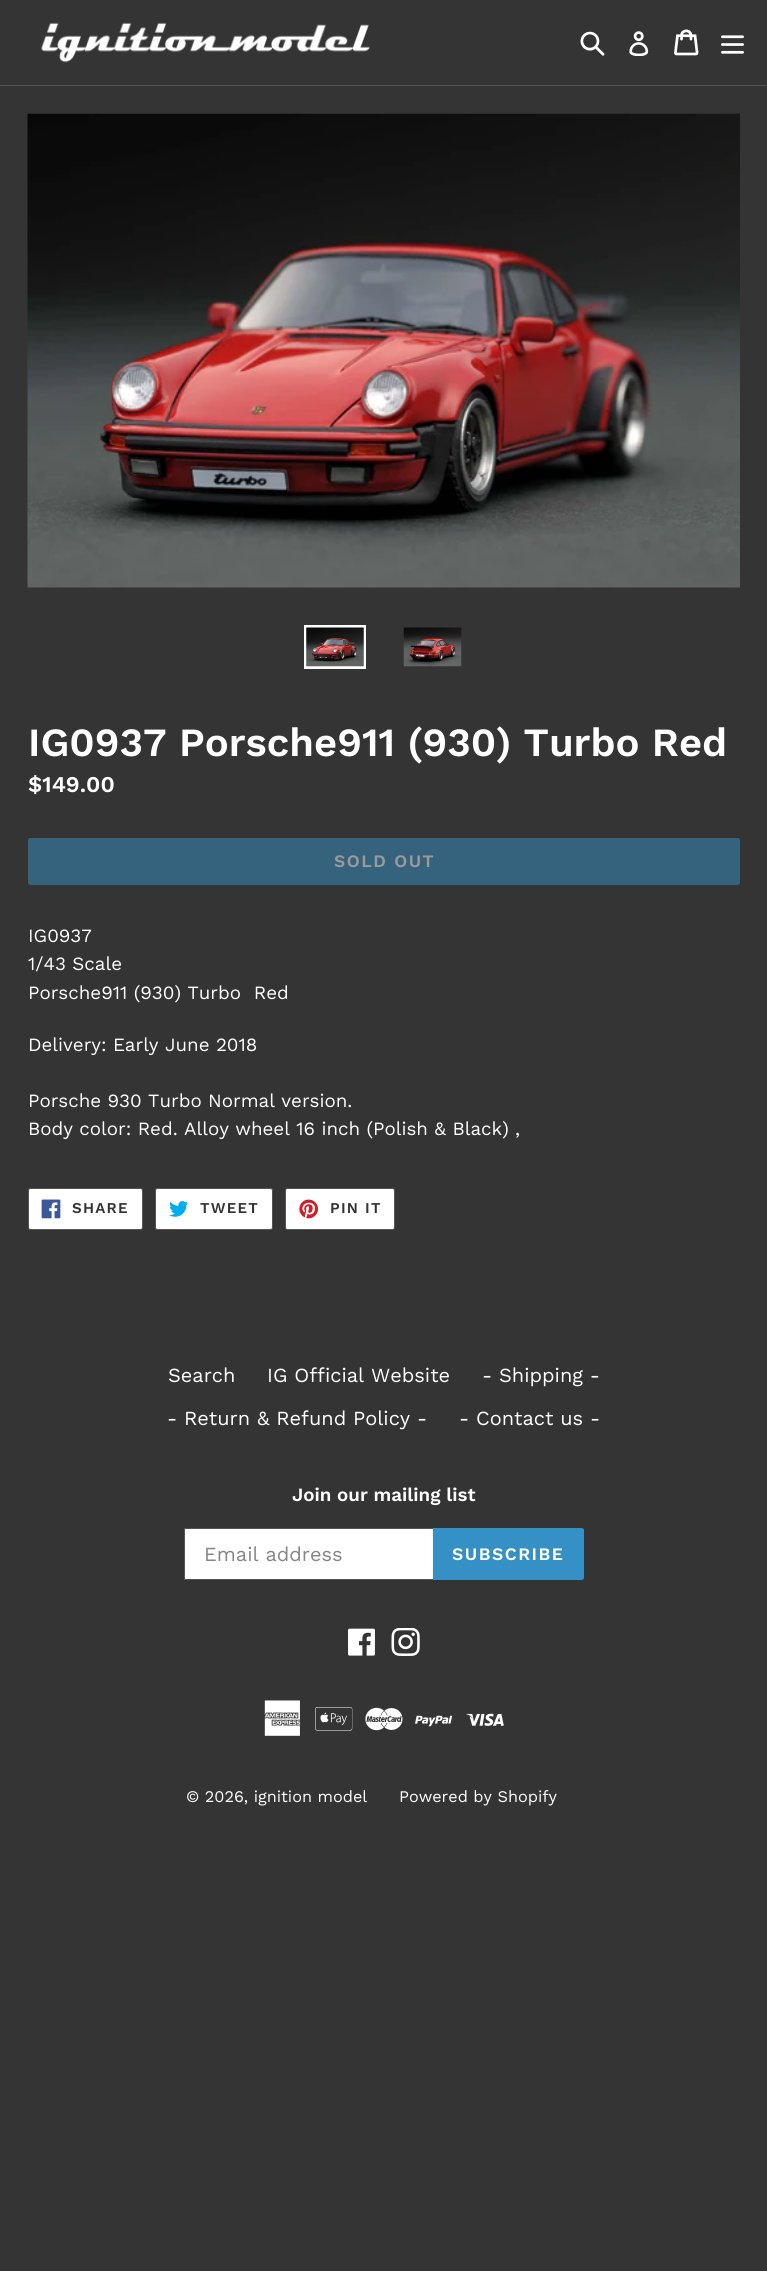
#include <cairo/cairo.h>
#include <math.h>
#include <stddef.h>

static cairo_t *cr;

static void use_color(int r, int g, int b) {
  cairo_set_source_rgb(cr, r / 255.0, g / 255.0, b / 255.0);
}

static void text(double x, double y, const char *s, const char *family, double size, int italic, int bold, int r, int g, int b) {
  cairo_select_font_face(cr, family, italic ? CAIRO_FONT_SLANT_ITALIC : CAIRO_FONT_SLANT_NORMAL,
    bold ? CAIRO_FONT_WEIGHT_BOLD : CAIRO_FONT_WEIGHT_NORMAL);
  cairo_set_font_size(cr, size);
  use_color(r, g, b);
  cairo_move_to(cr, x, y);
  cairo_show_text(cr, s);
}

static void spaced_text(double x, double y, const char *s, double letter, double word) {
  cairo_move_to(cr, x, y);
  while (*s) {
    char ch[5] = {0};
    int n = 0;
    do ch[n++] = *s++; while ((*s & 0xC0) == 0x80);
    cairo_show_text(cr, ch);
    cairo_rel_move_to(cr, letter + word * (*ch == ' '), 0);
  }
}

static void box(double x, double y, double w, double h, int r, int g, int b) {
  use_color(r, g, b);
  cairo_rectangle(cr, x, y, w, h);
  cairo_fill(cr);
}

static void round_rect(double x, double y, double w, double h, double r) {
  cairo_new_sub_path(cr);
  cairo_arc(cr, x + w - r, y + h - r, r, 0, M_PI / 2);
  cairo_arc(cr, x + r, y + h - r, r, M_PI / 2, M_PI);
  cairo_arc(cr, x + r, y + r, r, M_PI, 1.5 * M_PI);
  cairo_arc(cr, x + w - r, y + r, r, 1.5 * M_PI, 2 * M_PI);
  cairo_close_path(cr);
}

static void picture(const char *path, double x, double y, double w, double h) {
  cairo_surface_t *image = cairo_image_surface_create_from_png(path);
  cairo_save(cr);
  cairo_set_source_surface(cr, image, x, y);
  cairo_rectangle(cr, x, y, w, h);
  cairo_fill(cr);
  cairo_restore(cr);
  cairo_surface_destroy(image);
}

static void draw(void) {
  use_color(53, 52, 52);
  cairo_paint(cr);
  box(0, 85, 767, 1, 85, 85, 85);
  picture("img_01.png", 41, 22, 329, 41);
  picture("img_02.png", 580, 31, 25, 25);
  picture("img_03.png", 629, 31, 20, 25);
  picture("img_04.png", 674, 29, 25, 27);
  picture("img_05.png", 721, 35, 23, 19);
  picture("img_06.png", 27, 113, 713, 475);
  cairo_rectangle(cr, 305.5, 626.5, 59, 41);
  use_color(255, 255, 255);
  cairo_set_line_width(cr, 3);
  cairo_stroke(cr);
  picture("img_07.png", 306, 627, 58, 40);
  picture("img_08.png", 403, 627, 59, 40);
  use_color(53, 98, 125);
  round_rect(28, 838, 712, 47, 2.5);
  cairo_fill(cr);
  use_color(255, 255, 255);
  round_rect(28.5, 1188.5, 114, 41, 2);
  cairo_fill_preserve(cr);
  use_color(85, 85, 85);
  cairo_set_line_width(cr, 1);
  cairo_stroke(cr);
  picture("img_09.png", 41, 1199, 20, 20);
  use_color(255, 255, 255);
  round_rect(155.5, 1188.5, 117, 41, 2);
  cairo_fill_preserve(cr);
  use_color(85, 85, 85);
  cairo_stroke(cr);
  picture("img_10.png", 169, 1201, 20, 16);
  use_color(255, 255, 255);
  round_rect(285.5, 1188.5, 109, 41, 2);
  cairo_fill_preserve(cr);
  use_color(85, 85, 85);
  cairo_stroke(cr);
  picture("img_11.png", 299, 1199, 20, 20);
  use_color(255, 255, 255);
  cairo_new_path(cr);
  cairo_move_to(cr, 186.5, 1528);
  cairo_line_to(cr, 433, 1528);
  cairo_line_to(cr, 433, 1580);
  cairo_line_to(cr, 186.5, 1580);
  cairo_curve_to(cr, 185, 1580, 184, 1579, 184, 1577.5);
  cairo_line_to(cr, 184, 1530.5);
  cairo_curve_to(cr, 184, 1529, 185, 1528, 186.5, 1528);
  cairo_close_path(cr);
  cairo_fill(cr);
  box(185, 1528, 248, 1, 85, 85, 85);
  box(185, 1579, 248, 1, 85, 85, 85);
  box(184, 1529, 1, 50, 85, 85, 85);
  use_color(53, 144, 197);
  cairo_new_path(cr);
  cairo_move_to(cr, 433, 1528);
  cairo_line_to(cr, 581.5, 1528);
  cairo_curve_to(cr, 583, 1528, 584, 1529, 584, 1530.5);
  cairo_line_to(cr, 584, 1577.5);
  cairo_curve_to(cr, 584, 1579, 583, 1580, 581.5, 1580);
  cairo_line_to(cr, 433, 1580);
  cairo_close_path(cr);
  cairo_fill(cr);
  picture("img_12.png", 348, 1628, 27, 28);
  picture("img_13.png", 391, 1628, 29, 28);
  picture("img_14.png", 264, 1700, 37, 36);
  picture("img_15.png", 315, 1707, 38, 24);
  picture("img_16.png", 365, 1707, 38, 24);
  picture("img_17.png", 415, 1715, 38, 12);
  picture("img_18.png", 466, 1713, 38, 13);
  text(28, 756, "IG0937 Porsche911 (930) Turbo Red", "Work Sans SemiBold", 40, 0, 0, 255, 255, 255);
  text(28, 792, "$149.00", "Work Sans SemiBold", 22.5, 0, 0, 255, 255, 255);
  cairo_set_font_size(cr, 17.5);
  use_color(154, 154, 154);
  spaced_text(334, 867, "SOLD OUT", 1.5, 0);
  text(28, 942, "IG0937", "Work Sans", 18.75, 0, 0, 255, 255, 255);
  text(28, 970, "1/43 Scale", "Work Sans", 18.75, 0, 0, 255, 255, 255);
  text(28, 999, "Porsche911 (930) Turbo  Red", "Work Sans", 18.75, 0, 0, 255, 255, 255);
  text(28, 1051, "Delivery: Early June 2018", "Work Sans", 18.75, 0, 0, 255, 255, 255);
  text(28, 1107, "Porsche 930 Turbo Normal version.", "Work Sans", 18.75, 0, 0, 255, 255, 255);
  text(28, 1135, "Body color: Red. Alloy wheel 16 inch (Polish & Black) ,", "Work Sans", 18.75, 0, 0, 255, 255, 255);
  cairo_select_font_face(cr, "Work Sans SemiBold", CAIRO_FONT_SLANT_NORMAL, CAIRO_FONT_WEIGHT_NORMAL);
  cairo_set_font_size(cr, 15);
  use_color(53, 52, 52);
  spaced_text(72, 1213, "SHARE", 1.25, 0);
  spaced_text(200, 1213, "TWEET", 1.25, 0);
  spaced_text(330, 1213, "PIN IT", 1.25, 0);
  text(168, 1382, "Search", "Work Sans", 20, 0, 0, 255, 255, 255);
  text(267, 1382, "IG Official Website", "Work Sans", 20, 0, 0, 255, 255, 255);
  text(482, 1382, "- Shipping -", "Work Sans", 20, 0, 0, 255, 255, 255);
  text(167, 1425, "- Return & Refund Policy -", "Work Sans", 20, 0, 0, 255, 255, 255);
  text(459, 1425, "- Contact us -", "Work Sans", 20, 0, 0, 255, 255, 255);
  text(292, 1501, "Join our mailing list", "Work Sans SemiBold", 18.75, 0, 0, 255, 255, 255);
  text(204, 1561, "Email address", "Work Sans", 20, 0, 0, 134, 133, 133);
  cairo_select_font_face(cr, "Work Sans SemiBold", CAIRO_FONT_SLANT_NORMAL, CAIRO_FONT_WEIGHT_NORMAL);
  cairo_set_font_size(cr, 17.5);
  use_color(255, 255, 255);
  spaced_text(452, 1560, "SUBSCRIBE", 1.5, 0);
  text(186, 1802, "© 2026, ignition model", "Work Sans", 16.25, 0, 0, 255, 255, 255);
  text(399, 1802, "Powered by Shopify", "Work Sans", 16.25, 0, 0, 255, 255, 255);
}

int main(void) {
  cairo_surface_t *surface = cairo_image_surface_create(CAIRO_FORMAT_RGB24, 767, 2271);
  cr = cairo_create(surface);
  cairo_font_options_t *options = cairo_font_options_create();
  cairo_font_options_set_hint_metrics(options, CAIRO_HINT_METRICS_OFF);
  cairo_font_options_set_hint_style(options, CAIRO_HINT_STYLE_NONE);
  cairo_set_font_options(cr, options);
  cairo_set_miter_limit(cr, 4);
  draw();
  cairo_surface_write_to_png(surface, "out.png");
  cairo_font_options_destroy(options);
  cairo_destroy(cr);
  cairo_surface_destroy(surface);
  return 0;
}
